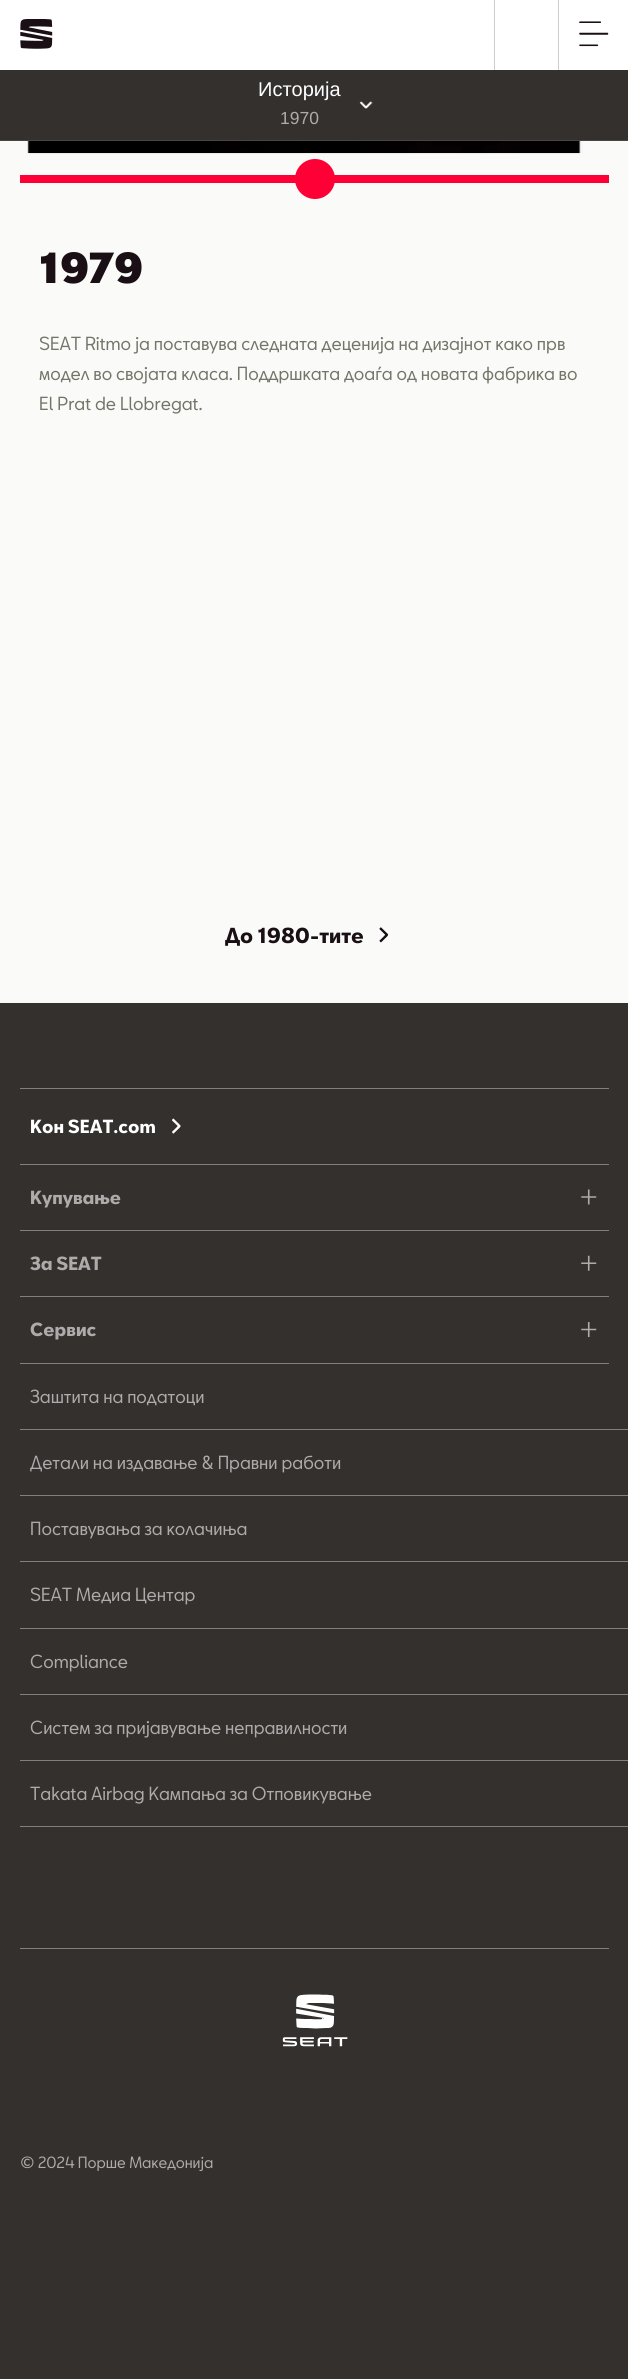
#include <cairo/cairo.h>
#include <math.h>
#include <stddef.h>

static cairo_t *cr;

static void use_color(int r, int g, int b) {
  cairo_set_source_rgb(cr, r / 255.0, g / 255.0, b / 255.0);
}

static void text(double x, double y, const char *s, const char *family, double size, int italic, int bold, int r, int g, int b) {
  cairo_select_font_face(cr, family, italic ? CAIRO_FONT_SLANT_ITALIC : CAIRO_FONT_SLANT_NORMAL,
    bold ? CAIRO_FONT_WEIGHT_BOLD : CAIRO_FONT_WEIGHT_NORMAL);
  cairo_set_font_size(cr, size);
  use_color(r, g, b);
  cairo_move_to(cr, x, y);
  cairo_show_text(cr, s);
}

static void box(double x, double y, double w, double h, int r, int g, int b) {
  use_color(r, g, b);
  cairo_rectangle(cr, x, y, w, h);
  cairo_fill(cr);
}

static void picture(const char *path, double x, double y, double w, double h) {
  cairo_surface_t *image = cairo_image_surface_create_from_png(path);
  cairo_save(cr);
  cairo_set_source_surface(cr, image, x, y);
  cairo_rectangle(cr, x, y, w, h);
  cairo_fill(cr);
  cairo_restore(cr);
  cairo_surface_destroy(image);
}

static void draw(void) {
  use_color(250, 250, 249);
  cairo_paint(cr);
  box(0, 0, 628, 70, 255, 255, 255);
  picture("img_01.png", 20, 19, 33, 30);
  box(494, 0, 1, 70, 204, 204, 204);
  box(558, 0, 1, 70, 204, 204, 204);
  picture("img_02.png", 579, 21, 30, 26);
  box(0, 70, 628, 70, 51, 48, 46);
  box(0, 140, 628, 1, 72, 69, 67);
  picture("img_03.png", 359, 101, 14, 8);
  picture("img_04.png", 27, 141, 575, 13);
  use_color(255, 0, 54);
  cairo_arc(cr, 315, 179, 20, 0, 2 * M_PI);
  cairo_fill(cr);
  box(20, 175, 589, 8, 255, 0, 54);
  picture("img_05.png", 379, 927, 10, 16);
  box(0, 1003, 628, 1376, 51, 48, 46);
  box(20, 1088, 589, 1, 130, 128, 127);
  box(20, 1164, 589, 1, 130, 128, 127);
  picture("img_06.png", 172, 1118, 9, 16);
  box(20, 1230, 589, 1, 130, 128, 127);
  picture("img_07.png", 581, 1189, 16, 16);
  box(20, 1296, 589, 1, 130, 128, 127);
  picture("img_08.png", 581, 1255, 16, 16);
  box(20, 1363, 589, 1, 130, 128, 127);
  picture("img_09.png", 581, 1322, 16, 15);
  box(20, 1429, 608, 1, 130, 128, 127);
  box(20, 1495, 608, 1, 130, 128, 127);
  box(20, 1561, 608, 1, 130, 128, 127);
  box(20, 1628, 608, 1, 130, 128, 127);
  box(20, 1694, 608, 1, 130, 128, 127);
  box(20, 1760, 608, 1, 130, 128, 127);
  box(20, 1826, 608, 1, 130, 128, 127);
  box(20, 1948, 589, 1, 130, 128, 127);
  picture("img_10.png", 282, 1994, 66, 53);
  text(258, 96, "Историја", "Liberation Sans", 20, 0, 0, 255, 255, 255);
  text(280, 124, "1970", "Liberation Sans", 17.5, 0, 0, 173, 172, 171);
  text(39, 283, "1979", "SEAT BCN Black", 40, 0, 0, 25, 15, 20);
  text(39, 350, "SEAT Ritmo ја поставува следната деценија на дизајнот како прв", "SEAT BCN", 17.5, 0, 0, 116, 116, 104);
  text(39, 380, "модел во својата класа. Поддршката доаѓа од новата фабрика во", "SEAT BCN", 17.5, 0, 0, 116, 116, 104);
  text(39, 410, "El Prat de Llobregat.", "SEAT BCN", 17.5, 0, 0, 116, 116, 104);
  text(225, 943, "До 1980-тите", "SEAT BCN", 20, 0, 1, 25, 15, 20);
  text(30, 1133, "Кон SEAT.com", "SEAT BCN", 17.5, 0, 1, 255, 255, 255);
  text(30, 1204, "Купување", "SEAT BCN", 17.5, 0, 1, 173, 172, 171);
  text(30, 1270, "За SEAT", "SEAT BCN", 17.5, 0, 1, 173, 172, 171);
  text(30, 1336, "Сервис", "SEAT BCN", 17.5, 0, 1, 173, 172, 171);
  text(30, 1403, "Заштита на податоци", "SEAT BCN", 17.5, 0, 0, 173, 172, 171);
  text(30, 1469, "Детали на издавање & Правни работи", "SEAT BCN", 17.5, 0, 0, 173, 172, 171);
  text(30, 1535, "Поставувања за колачиња", "SEAT BCN", 17.5, 0, 0, 173, 172, 171);
  text(30, 1601, "SEAT Медиа Центар", "SEAT BCN", 17.5, 0, 0, 173, 172, 171);
  text(30, 1668, "Compliance", "SEAT BCN", 17.5, 0, 0, 173, 172, 171);
  text(30, 1734, "Систем за пријавување неправилности", "SEAT BCN", 17.5, 0, 0, 173, 172, 171);
  text(30, 1800, "Takata Airbag Кампања за Отповикување", "SEAT BCN", 17.5, 0, 0, 173, 172, 171);
  text(20, 2168, "© 2024 Порше Македонија", "SEAT BCN", 15, 0, 0, 173, 172, 171);
}

int main(void) {
  cairo_surface_t *surface = cairo_image_surface_create(CAIRO_FORMAT_RGB24, 628, 2379);
  cr = cairo_create(surface);
  cairo_font_options_t *options = cairo_font_options_create();
  cairo_font_options_set_hint_metrics(options, CAIRO_HINT_METRICS_OFF);
  cairo_font_options_set_hint_style(options, CAIRO_HINT_STYLE_NONE);
  cairo_set_font_options(cr, options);
  cairo_set_miter_limit(cr, 4);
  draw();
  cairo_surface_write_to_png(surface, "out.png");
  cairo_font_options_destroy(options);
  cairo_destroy(cr);
  cairo_surface_destroy(surface);
  return 0;
}
